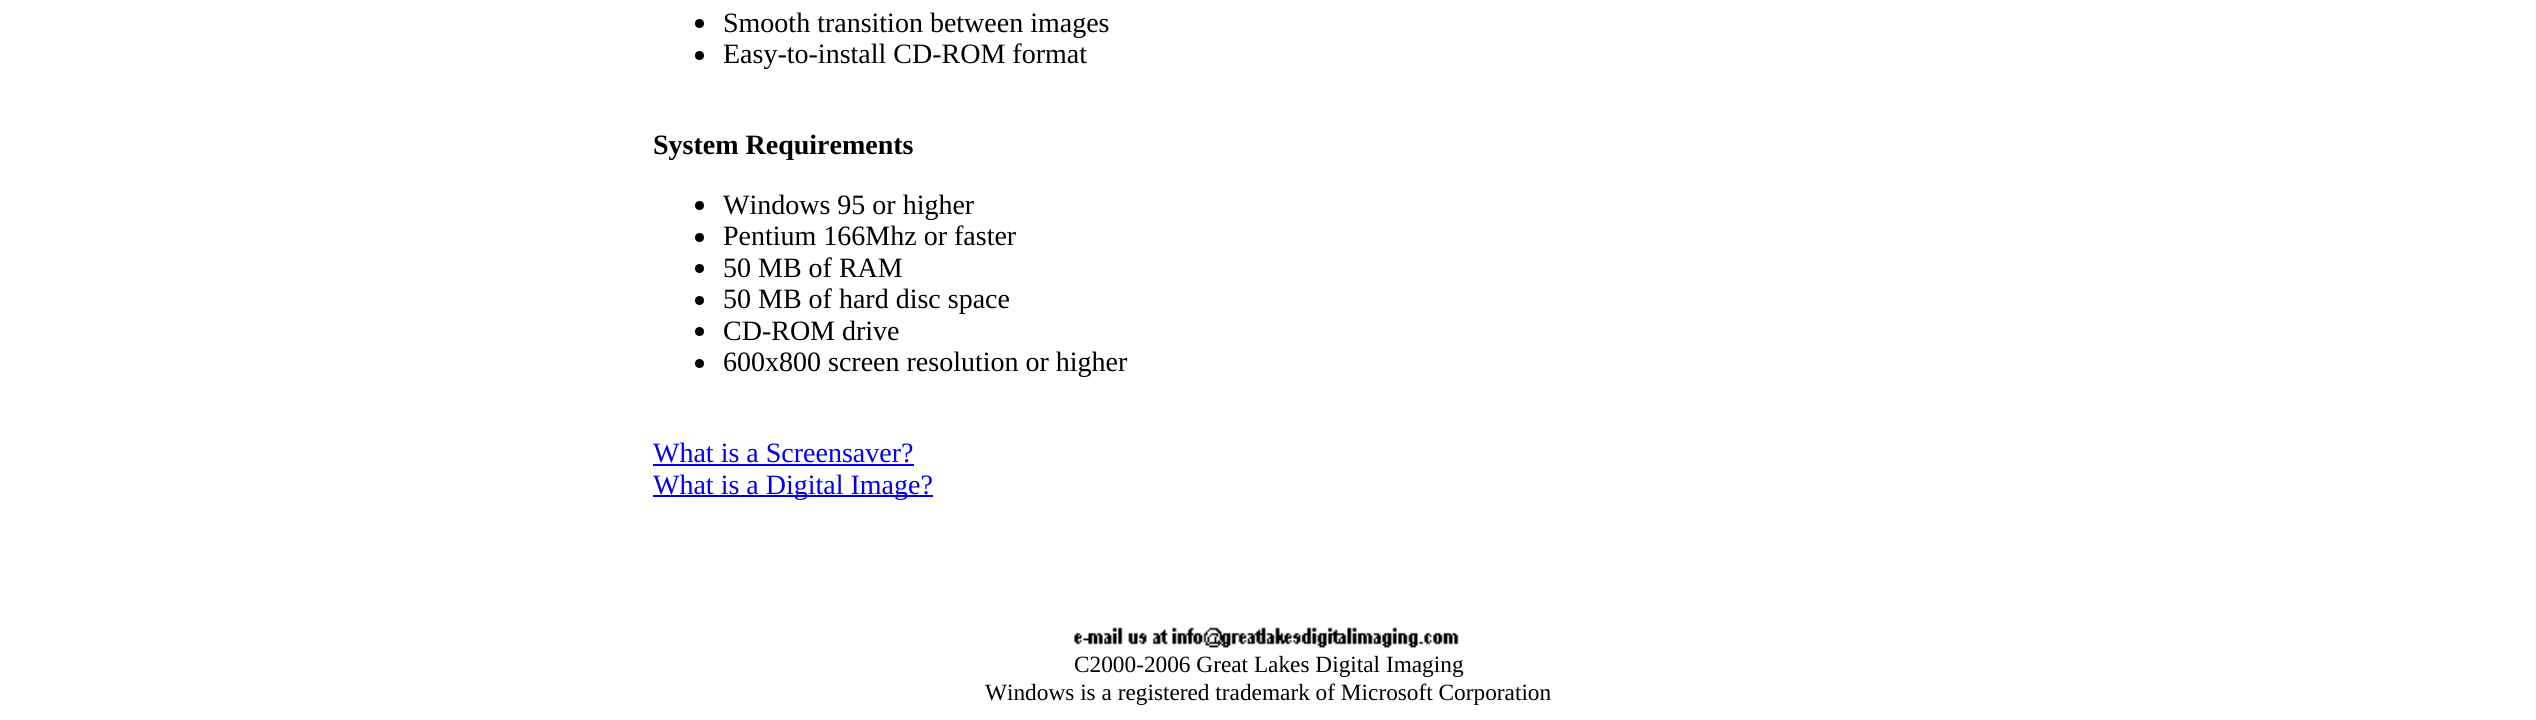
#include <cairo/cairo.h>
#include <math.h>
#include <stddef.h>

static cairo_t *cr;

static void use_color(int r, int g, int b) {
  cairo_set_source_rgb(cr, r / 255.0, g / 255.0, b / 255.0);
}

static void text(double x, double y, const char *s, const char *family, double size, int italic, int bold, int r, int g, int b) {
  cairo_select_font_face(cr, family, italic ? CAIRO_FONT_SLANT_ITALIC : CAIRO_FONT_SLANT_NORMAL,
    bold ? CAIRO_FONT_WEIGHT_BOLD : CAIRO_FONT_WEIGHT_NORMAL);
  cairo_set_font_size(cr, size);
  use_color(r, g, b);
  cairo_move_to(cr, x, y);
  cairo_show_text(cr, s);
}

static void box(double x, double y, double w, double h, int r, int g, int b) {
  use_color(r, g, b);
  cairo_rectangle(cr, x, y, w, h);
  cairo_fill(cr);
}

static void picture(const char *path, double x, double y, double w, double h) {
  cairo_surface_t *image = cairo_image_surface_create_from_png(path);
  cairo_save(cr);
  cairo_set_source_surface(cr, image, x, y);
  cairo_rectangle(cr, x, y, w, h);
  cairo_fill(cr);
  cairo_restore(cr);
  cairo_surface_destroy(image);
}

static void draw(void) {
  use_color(255, 255, 255);
  cairo_paint(cr);
  use_color(0, 0, 0);
  cairo_arc(cr, 699.5, 23.5, 4.5, 0, 2 * M_PI);
  cairo_fill(cr);
  cairo_arc(cr, 699.5, 55.5, 4.5, 0, 2 * M_PI);
  cairo_fill(cr);
  cairo_arc(cr, 699.5, 205.5, 4.5, 0, 2 * M_PI);
  cairo_fill(cr);
  cairo_arc(cr, 699.5, 237.5, 4.5, 0, 2 * M_PI);
  cairo_fill(cr);
  cairo_arc(cr, 699.5, 268.5, 4.5, 0, 2 * M_PI);
  cairo_fill(cr);
  cairo_arc(cr, 699.5, 300.5, 4.5, 0, 2 * M_PI);
  cairo_fill(cr);
  cairo_arc(cr, 699.5, 331.5, 4.5, 0, 2 * M_PI);
  cairo_fill(cr);
  cairo_arc(cr, 699.5, 363.5, 4.5, 0, 2 * M_PI);
  cairo_fill(cr);
  box(653, 464, 261, 2, 0, 0, 238);
  box(653, 495, 280, 2, 0, 0, 238);
  picture("img_01.png", 1074, 627, 385, 21);
  text(723, 32, "Smooth transition between images", "Liberation Serif", 28, 0, 0, 0, 0, 0);
  text(723, 63, "Easy-to-install CD-ROM format", "Liberation Serif", 28, 0, 0, 0, 0, 0);
  text(653, 154, "System Requirements", "Liberation Serif", 28, 0, 1, 0, 0, 0);
  text(723, 214, "Windows 95 or higher", "Liberation Serif", 28, 0, 0, 0, 0, 0);
  text(723, 245, "Pentium 166Mhz or faster", "Liberation Serif", 28, 0, 0, 0, 0, 0);
  text(723, 277, "50 MB of RAM", "Liberation Serif", 28, 0, 0, 0, 0, 0);
  text(723, 308, "50 MB of hard disc space", "Liberation Serif", 28, 0, 0, 0, 0, 0);
  text(723, 340, "CD-ROM drive", "Liberation Serif", 28, 0, 0, 0, 0, 0);
  text(723, 371, "600x800 screen resolution or higher", "Liberation Serif", 28, 0, 0, 0, 0, 0);
  text(653, 462, "What is a Screensaver?", "Liberation Serif", 28, 0, 0, 0, 0, 238);
  text(653, 494, "What is a Digital Image?", "Liberation Serif", 28, 0, 0, 0, 0, 238);
  text(1074, 672, "C2000-2006 Great Lakes Digital Imaging", "Liberation Serif", 23.3, 0, 0, 0, 0, 0);
  text(985, 700, "Windows is a registered trademark of Microsoft Corporation", "Liberation Serif", 23.3, 0, 0, 0, 0, 0);
}

int main(void) {
  cairo_surface_t *surface = cairo_image_surface_create(CAIRO_FORMAT_RGB24, 2536, 720);
  cr = cairo_create(surface);
  cairo_font_options_t *options = cairo_font_options_create();
  cairo_font_options_set_hint_metrics(options, CAIRO_HINT_METRICS_OFF);
  cairo_font_options_set_hint_style(options, CAIRO_HINT_STYLE_NONE);
  cairo_set_font_options(cr, options);
  cairo_set_miter_limit(cr, 4);
  draw();
  cairo_surface_write_to_png(surface, "out.png");
  cairo_font_options_destroy(options);
  cairo_destroy(cr);
  cairo_surface_destroy(surface);
  return 0;
}
